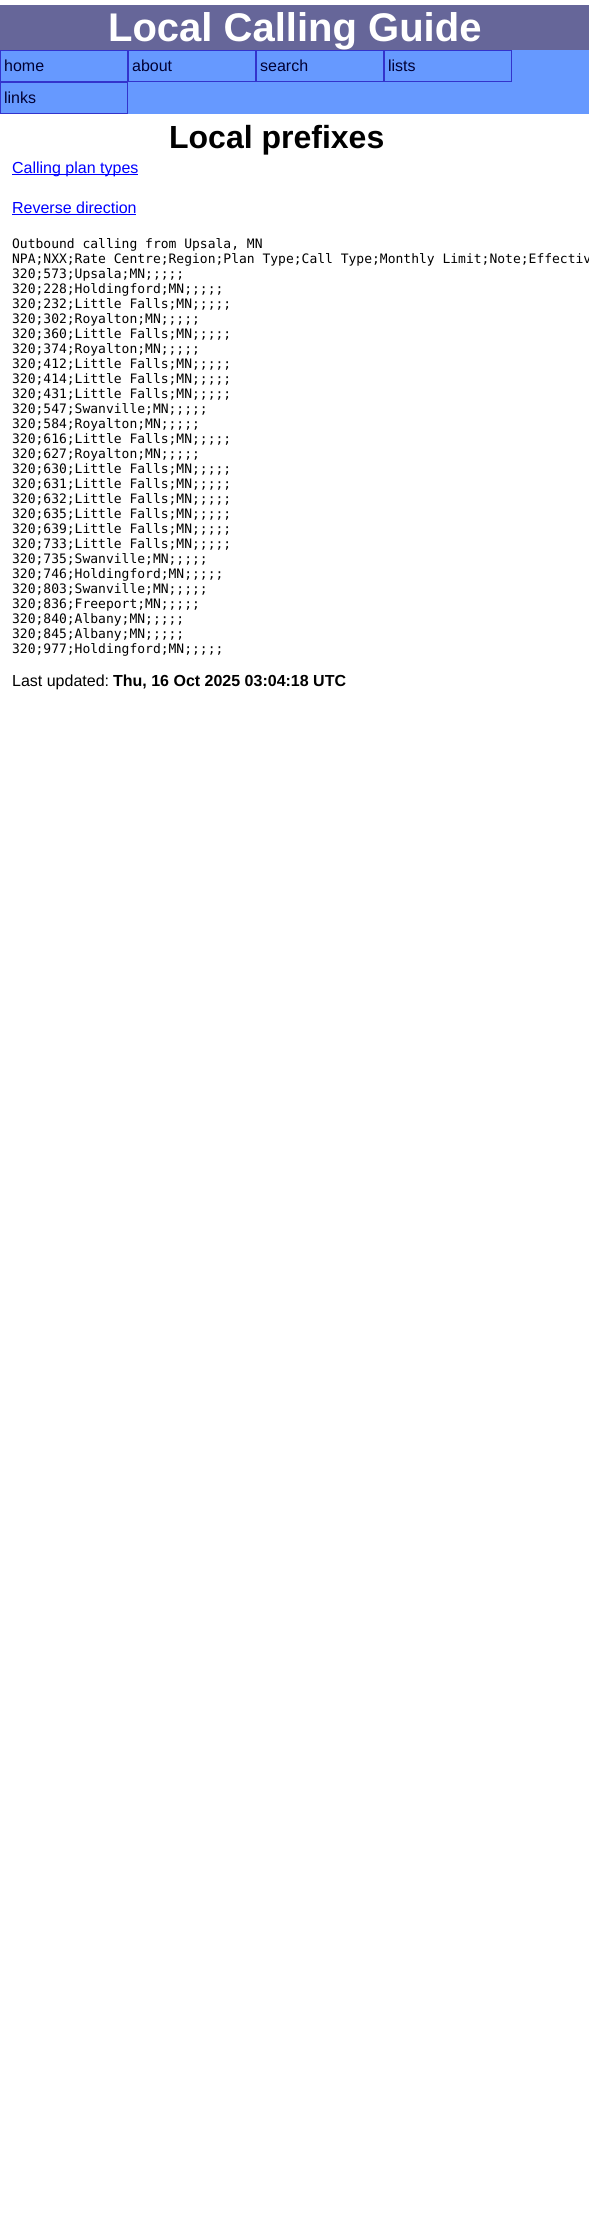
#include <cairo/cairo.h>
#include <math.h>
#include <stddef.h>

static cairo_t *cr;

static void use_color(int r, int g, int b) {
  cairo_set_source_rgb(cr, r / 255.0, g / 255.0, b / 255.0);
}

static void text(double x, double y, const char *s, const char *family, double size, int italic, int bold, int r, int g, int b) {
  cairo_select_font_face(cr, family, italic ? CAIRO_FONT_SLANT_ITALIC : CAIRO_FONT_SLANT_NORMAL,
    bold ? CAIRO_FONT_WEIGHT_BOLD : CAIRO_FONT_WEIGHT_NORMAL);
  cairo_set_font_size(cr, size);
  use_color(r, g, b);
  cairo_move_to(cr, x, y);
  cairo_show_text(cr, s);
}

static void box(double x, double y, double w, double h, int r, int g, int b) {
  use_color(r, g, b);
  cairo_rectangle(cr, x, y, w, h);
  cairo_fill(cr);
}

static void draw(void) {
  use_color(255, 255, 255);
  cairo_paint(cr);
  box(0, 5, 589, 45, 102, 102, 153);
  box(1, 50, 588, 64, 102, 153, 255);
  cairo_rectangle(cr, 0.5, 50.5, 127, 31);
  use_color(51, 51, 204);
  cairo_set_line_width(cr, 1);
  cairo_stroke(cr);
  cairo_rectangle(cr, 128.5, 50.5, 127, 31);
  cairo_stroke(cr);
  cairo_rectangle(cr, 256.5, 50.5, 127, 31);
  cairo_stroke(cr);
  cairo_rectangle(cr, 384.5, 50.5, 127, 31);
  cairo_stroke(cr);
  cairo_rectangle(cr, 0.5, 82.5, 127, 31);
  cairo_stroke(cr);
  box(12, 174, 126, 1, 0, 0, 255);
  box(12, 214, 124, 1, 0, 0, 255);
  text(108, 41, "Local Calling Guide", "Liberation Sans", 40, 0, 1, 255, 255, 255);
  text(4, 71, "home", "Liberation Sans", 16, 0, 0, 0, 0, 51);
  text(132, 71, "about", "Liberation Sans", 16, 0, 0, 0, 0, 51);
  text(260, 71, "search", "Liberation Sans", 16, 0, 0, 0, 0, 51);
  text(388, 71, "lists", "Liberation Sans", 16, 0, 0, 0, 0, 51);
  text(4, 103, "links", "Liberation Sans", 16, 0, 0, 0, 0, 51);
  text(169, 148, "Local prefixes", "Liberation Sans", 32, 0, 1, 0, 0, 0);
  text(12, 173, "Calling plan types", "Liberation Sans", 16, 0, 0, 0, 0, 255);
  text(12, 213, "Reverse direction", "Liberation Sans", 16, 0, 0, 0, 0, 255);
  text(12, 248, "Outbound calling from Upsala, MN", "DejaVu Sans Mono", 13, 0, 0, 0, 0, 0);
  text(12, 263, "NPA;NXX;Rate Centre;Region;Plan Type;Call Type;Monthly Limit;Note;Effectiv", "DejaVu Sans Mono", 13, 0, 0, 0, 0, 0);
  text(12, 278, "320;573;Upsala;MN;;;;;", "DejaVu Sans Mono", 13, 0, 0, 0, 0, 0);
  text(12, 293, "320;228;Holdingford;MN;;;;;", "DejaVu Sans Mono", 13, 0, 0, 0, 0, 0);
  text(12, 308, "320;232;Little Falls;MN;;;;;", "DejaVu Sans Mono", 13, 0, 0, 0, 0, 0);
  text(12, 323, "320;302;Royalton;MN;;;;;", "DejaVu Sans Mono", 13, 0, 0, 0, 0, 0);
  text(12, 338, "320;360;Little Falls;MN;;;;;", "DejaVu Sans Mono", 13, 0, 0, 0, 0, 0);
  text(12, 353, "320;374;Royalton;MN;;;;;", "DejaVu Sans Mono", 13, 0, 0, 0, 0, 0);
  text(12, 368, "320;412;Little Falls;MN;;;;;", "DejaVu Sans Mono", 13, 0, 0, 0, 0, 0);
  text(12, 383, "320;414;Little Falls;MN;;;;;", "DejaVu Sans Mono", 13, 0, 0, 0, 0, 0);
  text(12, 398, "320;431;Little Falls;MN;;;;;", "DejaVu Sans Mono", 13, 0, 0, 0, 0, 0);
  text(12, 413, "320;547;Swanville;MN;;;;;", "DejaVu Sans Mono", 13, 0, 0, 0, 0, 0);
  text(12, 428, "320;584;Royalton;MN;;;;;", "DejaVu Sans Mono", 13, 0, 0, 0, 0, 0);
  text(12, 443, "320;616;Little Falls;MN;;;;;", "DejaVu Sans Mono", 13, 0, 0, 0, 0, 0);
  text(12, 458, "320;627;Royalton;MN;;;;;", "DejaVu Sans Mono", 13, 0, 0, 0, 0, 0);
  text(12, 473, "320;630;Little Falls;MN;;;;;", "DejaVu Sans Mono", 13, 0, 0, 0, 0, 0);
  text(12, 488, "320;631;Little Falls;MN;;;;;", "DejaVu Sans Mono", 13, 0, 0, 0, 0, 0);
  text(12, 503, "320;632;Little Falls;MN;;;;;", "DejaVu Sans Mono", 13, 0, 0, 0, 0, 0);
  text(12, 518, "320;635;Little Falls;MN;;;;;", "DejaVu Sans Mono", 13, 0, 0, 0, 0, 0);
  text(12, 533, "320;639;Little Falls;MN;;;;;", "DejaVu Sans Mono", 13, 0, 0, 0, 0, 0);
  text(12, 548, "320;733;Little Falls;MN;;;;;", "DejaVu Sans Mono", 13, 0, 0, 0, 0, 0);
  text(12, 563, "320;735;Swanville;MN;;;;;", "DejaVu Sans Mono", 13, 0, 0, 0, 0, 0);
  text(12, 578, "320;746;Holdingford;MN;;;;;", "DejaVu Sans Mono", 13, 0, 0, 0, 0, 0);
  text(12, 593, "320;803;Swanville;MN;;;;;", "DejaVu Sans Mono", 13, 0, 0, 0, 0, 0);
  text(12, 608, "320;836;Freeport;MN;;;;;", "DejaVu Sans Mono", 13, 0, 0, 0, 0, 0);
  text(12, 623, "320;840;Albany;MN;;;;;", "DejaVu Sans Mono", 13, 0, 0, 0, 0, 0);
  text(12, 638, "320;845;Albany;MN;;;;;", "DejaVu Sans Mono", 13, 0, 0, 0, 0, 0);
  text(12, 653, "320;977;Holdingford;MN;;;;;", "DejaVu Sans Mono", 13, 0, 0, 0, 0, 0);
  text(12, 686, "Last updated:", "Liberation Sans", 16, 0, 0, 0, 0, 0);
  text(113, 686, "Thu, 16 Oct 2025 03:04:18 UTC", "Liberation Sans", 16, 0, 1, 0, 0, 0);
}

int main(void) {
  cairo_surface_t *surface = cairo_image_surface_create(CAIRO_FORMAT_RGB24, 589, 2240);
  cr = cairo_create(surface);
  cairo_font_options_t *options = cairo_font_options_create();
  cairo_font_options_set_hint_metrics(options, CAIRO_HINT_METRICS_OFF);
  cairo_font_options_set_hint_style(options, CAIRO_HINT_STYLE_NONE);
  cairo_set_font_options(cr, options);
  cairo_set_miter_limit(cr, 4);
  draw();
  cairo_surface_write_to_png(surface, "out.png");
  cairo_font_options_destroy(options);
  cairo_destroy(cr);
  cairo_surface_destroy(surface);
  return 0;
}
